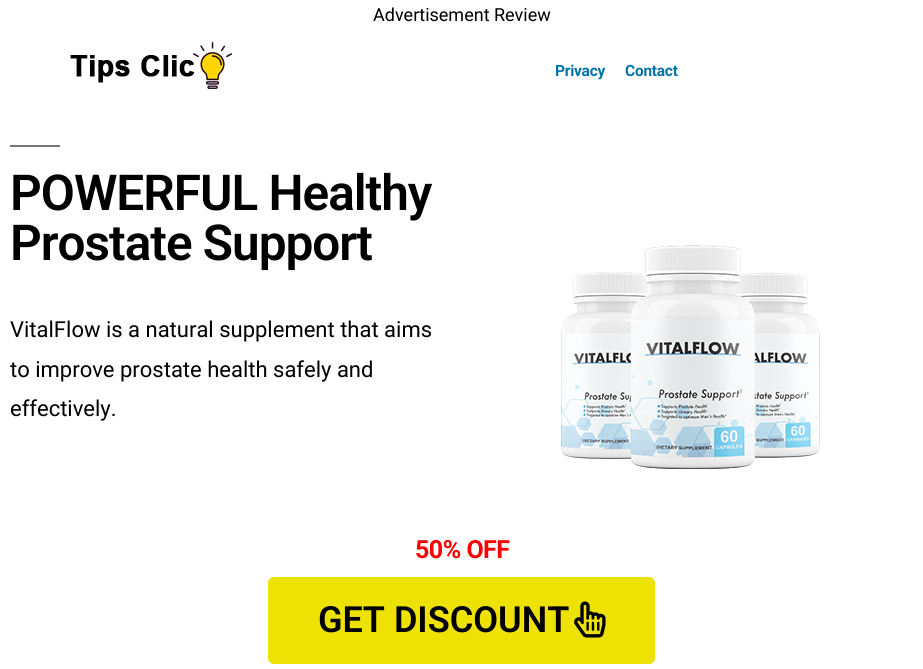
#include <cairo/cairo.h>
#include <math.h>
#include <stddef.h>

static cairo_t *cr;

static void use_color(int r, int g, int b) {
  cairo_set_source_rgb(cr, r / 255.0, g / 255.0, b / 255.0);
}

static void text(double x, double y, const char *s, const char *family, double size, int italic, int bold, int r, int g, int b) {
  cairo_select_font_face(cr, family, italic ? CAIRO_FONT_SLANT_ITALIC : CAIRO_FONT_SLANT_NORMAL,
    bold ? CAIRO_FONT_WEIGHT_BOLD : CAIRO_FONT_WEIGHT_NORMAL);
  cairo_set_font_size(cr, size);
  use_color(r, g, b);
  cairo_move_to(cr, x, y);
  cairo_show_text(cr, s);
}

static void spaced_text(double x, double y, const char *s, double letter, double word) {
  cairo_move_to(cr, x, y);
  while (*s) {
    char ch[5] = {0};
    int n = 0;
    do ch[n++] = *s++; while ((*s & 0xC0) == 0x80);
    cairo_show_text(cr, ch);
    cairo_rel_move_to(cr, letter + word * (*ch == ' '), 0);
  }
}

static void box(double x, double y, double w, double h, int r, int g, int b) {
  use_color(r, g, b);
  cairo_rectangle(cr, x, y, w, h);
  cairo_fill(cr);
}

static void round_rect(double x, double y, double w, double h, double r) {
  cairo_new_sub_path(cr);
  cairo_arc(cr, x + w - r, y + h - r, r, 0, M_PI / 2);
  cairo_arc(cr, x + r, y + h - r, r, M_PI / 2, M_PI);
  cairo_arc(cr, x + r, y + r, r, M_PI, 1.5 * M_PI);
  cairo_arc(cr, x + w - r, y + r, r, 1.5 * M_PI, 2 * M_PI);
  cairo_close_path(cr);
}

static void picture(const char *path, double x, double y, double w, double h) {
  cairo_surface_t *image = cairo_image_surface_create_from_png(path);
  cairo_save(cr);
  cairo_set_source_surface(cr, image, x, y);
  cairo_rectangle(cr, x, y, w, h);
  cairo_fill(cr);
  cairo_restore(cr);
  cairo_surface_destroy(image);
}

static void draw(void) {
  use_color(255, 255, 255);
  cairo_paint(cr);
  picture("img_01.png", 70, 42, 162, 47);
  box(10, 145, 50, 2, 118, 118, 118);
  picture("img_02.png", 561, 245, 259, 224);
  use_color(237, 226, 3);
  round_rect(268, 577, 387, 87, 6);
  cairo_fill(cr);
  picture("img_03.png", 574, 601, 32, 37);
  text(373, 21, "Advertisement Review", "Roboto", 18, 0, 0, 0, 0, 0);
  cairo_select_font_face(cr, "Roboto", CAIRO_FONT_SLANT_NORMAL, CAIRO_FONT_WEIGHT_BOLD);
  cairo_set_font_size(cr, 15.5);
  use_color(0, 115, 170);
  spaced_text(555, 76, "Privacy", -0.25, 0);
  spaced_text(625, 76, "Contact", -0.25, 0);
  cairo_select_font_face(cr, "Roboto SemiBold", CAIRO_FONT_SLANT_NORMAL, CAIRO_FONT_WEIGHT_NORMAL);
  cairo_set_font_size(cr, 49.5);
  use_color(0, 0, 0);
  spaced_text(10, 210, "POWERFUL Healthy", -1, 0);
  spaced_text(10, 260, "Prostate Support", -1, 0);
  text(10, 337, "VitalFlow is a natural supplement that aims", "Roboto", 22, 0, 0, 0, 0, 0);
  text(10, 377, "to improve prostate health safely and", "Roboto", 22, 0, 0, 0, 0, 0);
  text(10, 416, "effectively.", "Roboto", 22, 0, 0, 0, 0, 0);
  cairo_select_font_face(cr, "Roboto", CAIRO_FONT_SLANT_NORMAL, CAIRO_FONT_WEIGHT_BOLD);
  cairo_set_font_size(cr, 25);
  use_color(255, 0, 0);
  spaced_text(415, 558, "50% OFF", -0.5, 0);
  text(318, 632, "GET DISCOUNT", "Roboto SemiBold", 36, 0, 0, 0, 0, 0);
}

int main(void) {
  cairo_surface_t *surface = cairo_image_surface_create(CAIRO_FORMAT_RGB24, 923, 669);
  cr = cairo_create(surface);
  cairo_font_options_t *options = cairo_font_options_create();
  cairo_font_options_set_hint_metrics(options, CAIRO_HINT_METRICS_OFF);
  cairo_font_options_set_hint_style(options, CAIRO_HINT_STYLE_NONE);
  cairo_set_font_options(cr, options);
  cairo_set_miter_limit(cr, 4);
  draw();
  cairo_surface_write_to_png(surface, "out.png");
  cairo_font_options_destroy(options);
  cairo_destroy(cr);
  cairo_surface_destroy(surface);
  return 0;
}
